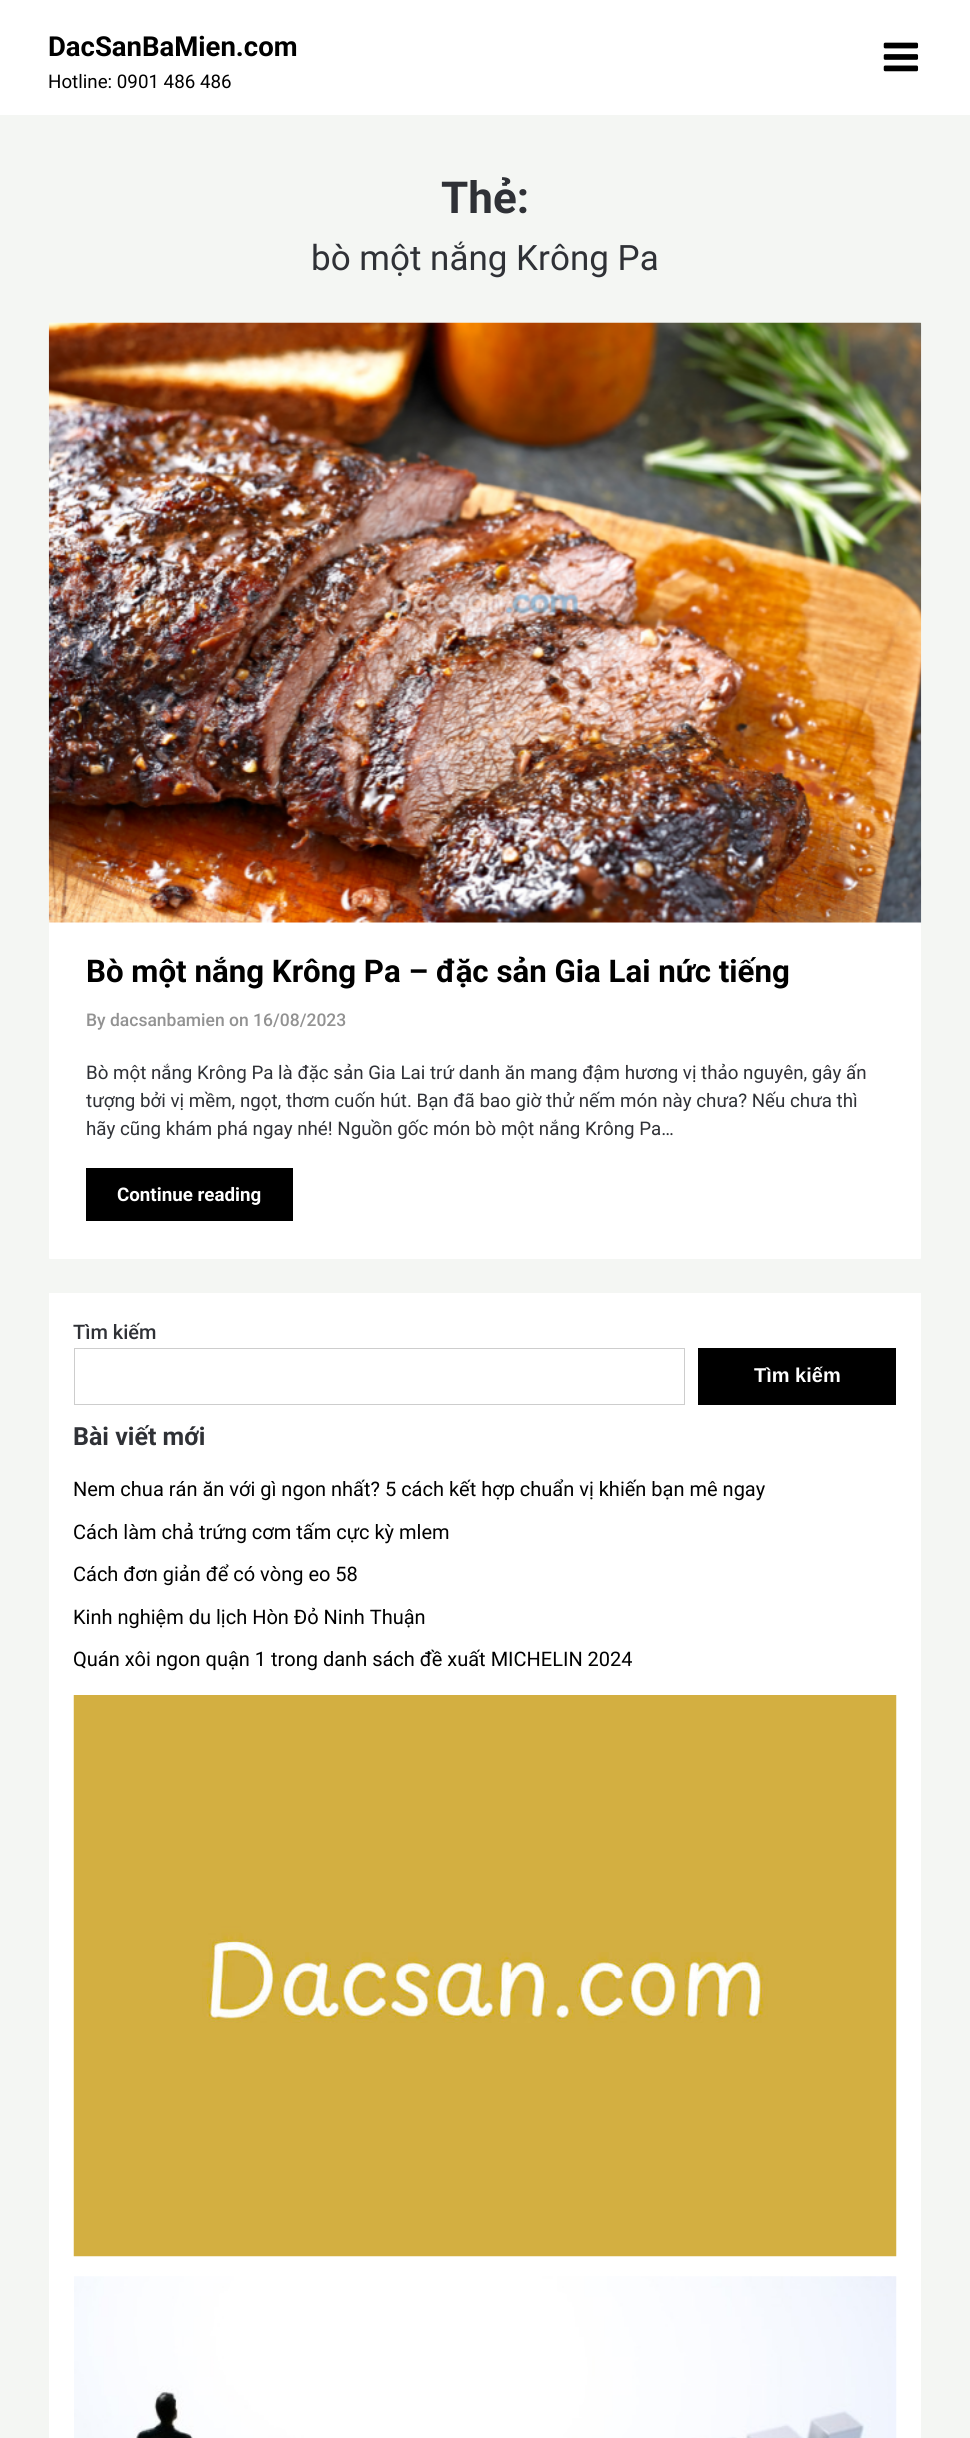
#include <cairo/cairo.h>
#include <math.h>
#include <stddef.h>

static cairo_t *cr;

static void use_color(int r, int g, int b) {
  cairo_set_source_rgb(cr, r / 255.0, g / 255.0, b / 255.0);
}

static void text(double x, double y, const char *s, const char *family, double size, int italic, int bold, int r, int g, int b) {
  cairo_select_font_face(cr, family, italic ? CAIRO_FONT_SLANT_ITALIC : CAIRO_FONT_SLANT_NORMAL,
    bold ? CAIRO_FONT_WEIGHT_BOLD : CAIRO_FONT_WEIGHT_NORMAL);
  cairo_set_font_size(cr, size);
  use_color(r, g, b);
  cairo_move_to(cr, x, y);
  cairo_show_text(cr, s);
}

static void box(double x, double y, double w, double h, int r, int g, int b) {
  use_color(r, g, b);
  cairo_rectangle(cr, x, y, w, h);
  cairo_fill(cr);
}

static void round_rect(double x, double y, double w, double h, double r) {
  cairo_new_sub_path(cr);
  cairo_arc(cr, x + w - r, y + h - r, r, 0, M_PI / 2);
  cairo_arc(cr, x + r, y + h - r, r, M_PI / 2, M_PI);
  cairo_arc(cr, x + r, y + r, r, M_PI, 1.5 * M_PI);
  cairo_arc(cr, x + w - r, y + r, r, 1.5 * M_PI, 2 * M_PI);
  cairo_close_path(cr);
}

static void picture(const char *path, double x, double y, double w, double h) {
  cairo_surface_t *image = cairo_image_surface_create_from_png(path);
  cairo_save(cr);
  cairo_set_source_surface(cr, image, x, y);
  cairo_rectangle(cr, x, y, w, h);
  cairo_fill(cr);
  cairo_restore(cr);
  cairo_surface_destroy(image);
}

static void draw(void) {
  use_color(244, 246, 243);
  cairo_paint(cr);
  box(0, 0, 970, 115, 255, 255, 255);
  picture("img_01.png", 883, 42, 36, 30);
  round_rect(49, 323, 872, 936, 1);
  cairo_fill(cr);
  picture("img_02.png", 48, 322, 874, 601);
  box(86, 1168, 207, 53, 0, 0, 0);
  box(49, 1293, 872, 1145, 255, 255, 255);
  cairo_rectangle(cr, 74.5, 1348.5, 610, 56);
  use_color(205, 205, 205);
  cairo_set_line_width(cr, 1);
  cairo_stroke(cr);
  box(698, 1348, 198, 57, 0, 0, 0);
  picture("img_03.png", 73, 1695, 824, 562);
  picture("img_04.png", 74, 2276, 823, 162);
  text(48, 56, "DacSanBaMien.com", "Roboto", 27.5, 0, 1, 0, 0, 0);
  text(48, 88, "Hotline: 0901 486 486", "Roboto", 18.75, 0, 0, 0, 0, 0);
  text(441, 213, "Thẻ:", "Roboto", 44, 0, 1, 47, 49, 54);
  text(311, 270, "bò một nắng Krông Pa", "Roboto", 35, 0, 0, 47, 49, 54);
  text(86, 982, "Bò một nắng Krông Pa – đặc sản Gia Lai nức tiếng", "Roboto", 31.25, 0, 1, 0, 0, 0);
  text(86, 1026, "By dacsanbamien on 16/08/2023", "Roboto Medium", 17.5, 0, 0, 146, 146, 146);
  text(86, 1079, "Bò một nắng Krông Pa là đặc sản Gia Lai trứ danh ăn mang đậm hương vị thảo nguyên, gây ấn", "Roboto", 18.75, 0, 0, 47, 49, 54);
  text(86, 1107, "tượng bởi vị mềm, ngọt, thơm cuốn hút. Bạn đã bao giờ thử nếm món này chưa? Nếu chưa thì", "Roboto", 18.75, 0, 0, 47, 49, 54);
  text(86, 1135, "hãy cũng khám phá ngay nhé! Nguồn gốc món bò một nắng Krông Pa…", "Roboto", 18.75, 0, 0, 47, 49, 54);
  text(117, 1201, "Continue reading", "Roboto", 18.75, 0, 1, 255, 255, 255);
  text(73, 1339, "Tìm kiếm", "Roboto Medium", 20, 0, 0, 47, 49, 54);
  text(754, 1382, "Tìm kiếm", "Liberation Sans", 20, 0, 1, 255, 255, 255);
  text(73, 1445, "Bài viết mới", "Roboto", 25, 0, 1, 47, 49, 54);
  text(73, 1496, "Nem chua rán ăn với gì ngon nhất? 5 cách kết hợp chuẩn vị khiến bạn mê ngay", "Roboto", 20, 0, 0, 0, 0, 0);
  text(73, 1539, "Cách làm chả trứng cơm tấm cực kỳ mlem", "Roboto", 20, 0, 0, 0, 0, 0);
  text(73, 1581, "Cách đơn giản để có vòng eo 58", "Roboto", 20, 0, 0, 0, 0, 0);
  text(73, 1624, "Kinh nghiệm du lịch Hòn Đỏ Ninh Thuận", "Roboto", 20, 0, 0, 0, 0, 0);
  text(73, 1666, "Quán xôi ngon quận 1 trong danh sách đề xuất MICHELIN 2024", "Roboto", 20, 0, 0, 0, 0, 0);
}

int main(void) {
  cairo_surface_t *surface = cairo_image_surface_create(CAIRO_FORMAT_RGB24, 970, 2438);
  cr = cairo_create(surface);
  cairo_font_options_t *options = cairo_font_options_create();
  cairo_font_options_set_hint_metrics(options, CAIRO_HINT_METRICS_OFF);
  cairo_font_options_set_hint_style(options, CAIRO_HINT_STYLE_NONE);
  cairo_set_font_options(cr, options);
  cairo_set_miter_limit(cr, 4);
  draw();
  cairo_surface_write_to_png(surface, "out.png");
  cairo_font_options_destroy(options);
  cairo_destroy(cr);
  cairo_surface_destroy(surface);
  return 0;
}
